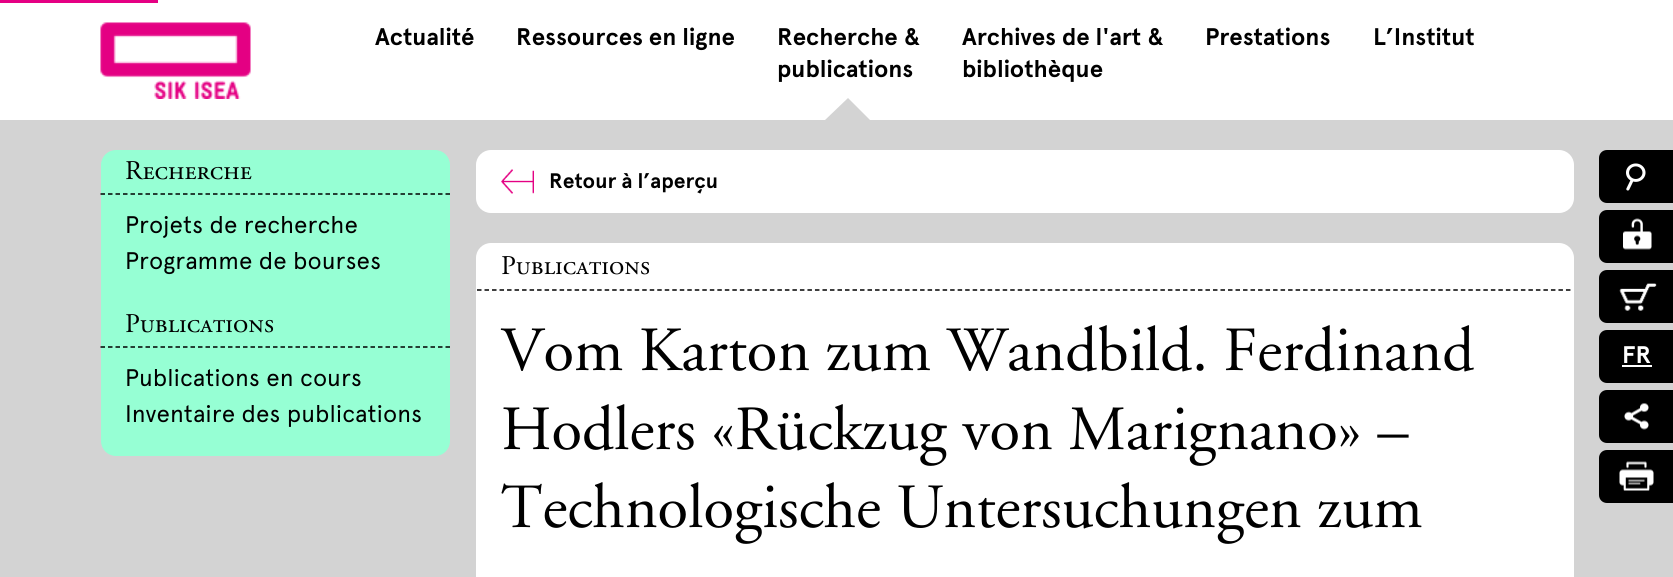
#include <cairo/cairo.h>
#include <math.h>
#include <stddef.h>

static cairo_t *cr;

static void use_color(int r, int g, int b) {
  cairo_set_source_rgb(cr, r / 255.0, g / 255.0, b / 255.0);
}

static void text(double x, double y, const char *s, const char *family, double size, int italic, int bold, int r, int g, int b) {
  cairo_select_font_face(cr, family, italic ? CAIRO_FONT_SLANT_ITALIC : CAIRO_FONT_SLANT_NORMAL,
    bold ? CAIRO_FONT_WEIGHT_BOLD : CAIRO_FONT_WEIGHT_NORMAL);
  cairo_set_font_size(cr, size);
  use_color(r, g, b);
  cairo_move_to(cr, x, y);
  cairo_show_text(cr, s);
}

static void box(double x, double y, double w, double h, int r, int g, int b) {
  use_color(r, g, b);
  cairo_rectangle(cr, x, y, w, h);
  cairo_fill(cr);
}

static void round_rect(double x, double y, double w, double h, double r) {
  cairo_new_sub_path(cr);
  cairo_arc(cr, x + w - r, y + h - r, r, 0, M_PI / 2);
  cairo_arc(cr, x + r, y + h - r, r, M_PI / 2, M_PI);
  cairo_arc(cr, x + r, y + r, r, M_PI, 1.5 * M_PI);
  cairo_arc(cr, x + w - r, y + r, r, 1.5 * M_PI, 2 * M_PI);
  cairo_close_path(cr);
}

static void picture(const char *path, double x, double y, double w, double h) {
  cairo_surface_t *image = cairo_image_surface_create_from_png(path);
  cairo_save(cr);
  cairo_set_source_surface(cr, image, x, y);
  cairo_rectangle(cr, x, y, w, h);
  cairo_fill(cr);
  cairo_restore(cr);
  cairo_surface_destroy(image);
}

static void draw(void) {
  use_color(211, 211, 211);
  cairo_paint(cr);
  box(0, 0, 1673, 120, 255, 255, 255);
  box(0, 0, 158, 3, 229, 0, 131);
  picture("img_01.png", 100, 22, 151, 77);
  use_color(211, 211, 211);
  cairo_new_path(cr);
  cairo_move_to(cr, 870, 120);
  cairo_line_to(cr, 825, 120);
  cairo_line_to(cr, 848, 98);
  cairo_close_path(cr);
  cairo_fill(cr);
  use_color(0, 0, 0);
  cairo_new_path(cr);
  cairo_move_to(cr, 1607, 150);
  cairo_line_to(cr, 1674, 150);
  cairo_line_to(cr, 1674, 203);
  cairo_line_to(cr, 1607, 203);
  cairo_curve_to(cr, 1602.5, 203, 1599, 199.5, 1599, 195);
  cairo_line_to(cr, 1599, 158);
  cairo_curve_to(cr, 1599, 153.5, 1602.5, 150, 1607, 150);
  cairo_close_path(cr);
  cairo_fill(cr);
  picture("img_02.png", 1626, 163, 20, 28);
  cairo_new_path(cr);
  cairo_move_to(cr, 1607, 210);
  cairo_line_to(cr, 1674, 210);
  cairo_line_to(cr, 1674, 263);
  cairo_line_to(cr, 1607, 263);
  cairo_curve_to(cr, 1602.5, 263, 1599, 259.5, 1599, 255);
  cairo_line_to(cr, 1599, 218);
  cairo_curve_to(cr, 1599, 213.5, 1602.5, 210, 1607, 210);
  cairo_close_path(cr);
  cairo_fill(cr);
  picture("img_03.png", 1623, 218, 29, 32);
  cairo_new_path(cr);
  cairo_move_to(cr, 1607, 270);
  cairo_line_to(cr, 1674, 270);
  cairo_line_to(cr, 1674, 323);
  cairo_line_to(cr, 1607, 323);
  cairo_curve_to(cr, 1602.5, 323, 1599, 319.5, 1599, 315);
  cairo_line_to(cr, 1599, 278);
  cairo_curve_to(cr, 1599, 273.5, 1602.5, 270, 1607, 270);
  cairo_close_path(cr);
  cairo_fill(cr);
  picture("img_04.png", 1619, 283, 38, 28);
  cairo_new_path(cr);
  cairo_move_to(cr, 1607, 330);
  cairo_line_to(cr, 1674, 330);
  cairo_line_to(cr, 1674, 383);
  cairo_line_to(cr, 1607, 383);
  cairo_curve_to(cr, 1602.5, 383, 1599, 379.5, 1599, 375);
  cairo_line_to(cr, 1599, 338);
  cairo_curve_to(cr, 1599, 333.5, 1602.5, 330, 1607, 330);
  cairo_close_path(cr);
  cairo_fill(cr);
  box(1622, 365, 30, 2, 255, 255, 255);
  use_color(0, 0, 0);
  cairo_new_path(cr);
  cairo_move_to(cr, 1607, 390);
  cairo_line_to(cr, 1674, 390);
  cairo_line_to(cr, 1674, 443);
  cairo_line_to(cr, 1607, 443);
  cairo_curve_to(cr, 1602.5, 443, 1599, 439.5, 1599, 435);
  cairo_line_to(cr, 1599, 398);
  cairo_curve_to(cr, 1599, 393.5, 1602.5, 390, 1607, 390);
  cairo_close_path(cr);
  cairo_fill(cr);
  picture("img_05.png", 1624, 403, 25, 27);
  cairo_new_path(cr);
  cairo_move_to(cr, 1607, 450);
  cairo_line_to(cr, 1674, 450);
  cairo_line_to(cr, 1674, 503);
  cairo_line_to(cr, 1607, 503);
  cairo_curve_to(cr, 1602.5, 503, 1599, 499.5, 1599, 495);
  cairo_line_to(cr, 1599, 458);
  cairo_curve_to(cr, 1599, 453.5, 1602.5, 450, 1607, 450);
  cairo_close_path(cr);
  cairo_fill(cr);
  picture("img_06.png", 1619, 461, 35, 30);
  use_color(150, 255, 212);
  round_rect(101, 150, 349, 306, 15);
  cairo_fill(cr);
  cairo_new_path(cr);
  cairo_move_to(cr, 100.5, 194);
  cairo_line_to(cr, 450, 194);
  use_color(0, 0, 0);
  cairo_set_line_width(cr, 1.5);
  cairo_set_dash(cr, (double[]){4.5, 3}, 2, 0);
  cairo_stroke(cr);
  cairo_new_path(cr);
  cairo_move_to(cr, 100.5, 347);
  cairo_line_to(cr, 450, 347);
  cairo_stroke(cr);
  use_color(255, 255, 255);
  round_rect(476, 150, 1098, 63, 15);
  cairo_fill(cr);
  picture("img_07.png", 501, 169, 33, 25);
  round_rect(476, 243, 1098, 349, 15);
  cairo_fill(cr);
  cairo_new_path(cr);
  cairo_move_to(cr, 477, 290);
  cairo_line_to(cr, 1572, 290);
  use_color(0, 0, 0);
  cairo_set_dash(cr, (double[]){4.5, 3.01}, 2, 0);
  cairo_stroke(cr);
  text(375, 45, "Actualité", "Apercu", 24, 0, 1, 0, 0, 0);
  text(516, 45, "Ressources en ligne", "Apercu", 24, 0, 1, 0, 0, 0);
  text(777, 45, "Recherche &", "Apercu", 24, 0, 1, 0, 0, 0);
  text(777, 77, "publications", "Apercu", 24, 0, 1, 0, 0, 0);
  text(962, 45, "Archives de l'art &", "Apercu", 24, 0, 1, 0, 0, 0);
  text(962, 77, "bibliothèque", "Apercu", 24, 0, 1, 0, 0, 0);
  text(1205, 45, "Prestations", "Apercu", 24, 0, 1, 0, 0, 0);
  text(1373, 45, "L’Institut", "Apercu", 24, 0, 1, 0, 0, 0);
  text(1622, 363, "FR", "Apercu", 24, 0, 1, 255, 255, 255);
  text(125, 179, "Recherche", "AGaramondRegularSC", 27, 0, 0, 0, 0, 0);
  text(125, 233, "Projets de recherche", "Apercu", 24, 0, 0, 0, 0, 0);
  text(125, 269, "Programme de bourses", "Apercu", 24, 0, 0, 0, 0, 0);
  text(125, 332, "Publications", "AGaramondRegularSC", 27, 0, 0, 0, 0, 0);
  text(125, 386, "Publications en cours", "Apercu", 24, 0, 0, 0, 0, 0);
  text(125, 422, "Inventaire des publications", "Apercu", 24, 0, 0, 0, 0, 0);
  text(549, 188, "Retour à l’aperçu", "Apercu", 21, 0, 1, 0, 0, 0);
  text(501, 274, "Publications", "AGaramondRegularSC", 27, 0, 0, 0, 0, 0);
  text(501, 370, "Vom Karton zum Wandbild. Ferdinand", "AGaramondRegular", 62.75, 0, 0, 0, 0, 0);
  text(501, 449, "Hodlers «Rückzug von Marignano» –", "AGaramondRegular", 62.75, 0, 0, 0, 0, 0);
  text(501, 527, "Technologische Untersuchungen zum", "AGaramondRegular", 62.75, 0, 0, 0, 0, 0);
}

int main(void) {
  cairo_surface_t *surface = cairo_image_surface_create(CAIRO_FORMAT_RGB24, 1673, 577);
  cr = cairo_create(surface);
  cairo_font_options_t *options = cairo_font_options_create();
  cairo_font_options_set_hint_metrics(options, CAIRO_HINT_METRICS_OFF);
  cairo_font_options_set_hint_style(options, CAIRO_HINT_STYLE_NONE);
  cairo_set_font_options(cr, options);
  cairo_set_miter_limit(cr, 4);
  draw();
  cairo_surface_write_to_png(surface, "out.png");
  cairo_font_options_destroy(options);
  cairo_destroy(cr);
  cairo_surface_destroy(surface);
  return 0;
}
